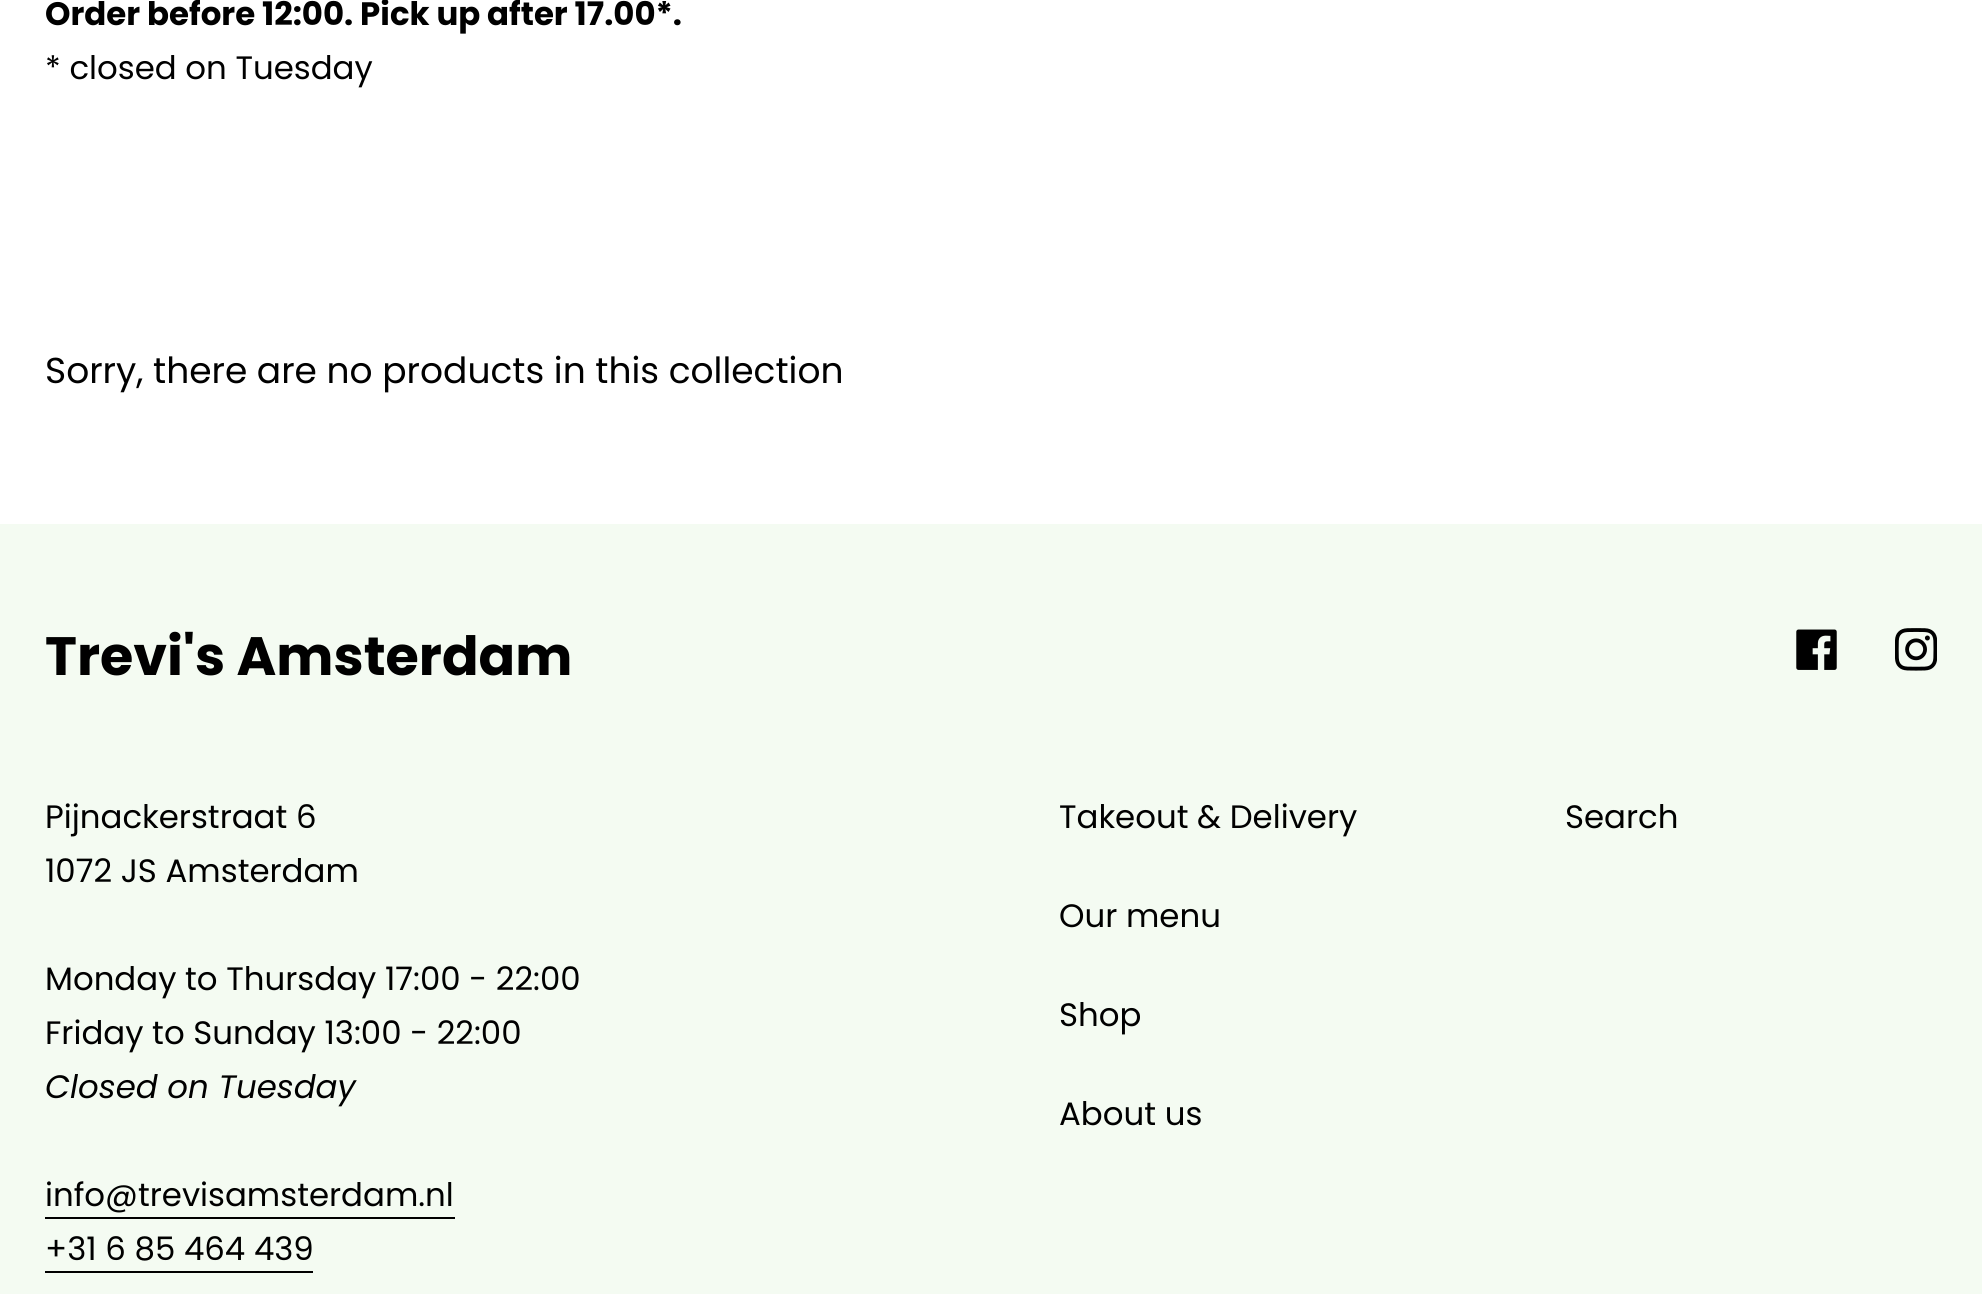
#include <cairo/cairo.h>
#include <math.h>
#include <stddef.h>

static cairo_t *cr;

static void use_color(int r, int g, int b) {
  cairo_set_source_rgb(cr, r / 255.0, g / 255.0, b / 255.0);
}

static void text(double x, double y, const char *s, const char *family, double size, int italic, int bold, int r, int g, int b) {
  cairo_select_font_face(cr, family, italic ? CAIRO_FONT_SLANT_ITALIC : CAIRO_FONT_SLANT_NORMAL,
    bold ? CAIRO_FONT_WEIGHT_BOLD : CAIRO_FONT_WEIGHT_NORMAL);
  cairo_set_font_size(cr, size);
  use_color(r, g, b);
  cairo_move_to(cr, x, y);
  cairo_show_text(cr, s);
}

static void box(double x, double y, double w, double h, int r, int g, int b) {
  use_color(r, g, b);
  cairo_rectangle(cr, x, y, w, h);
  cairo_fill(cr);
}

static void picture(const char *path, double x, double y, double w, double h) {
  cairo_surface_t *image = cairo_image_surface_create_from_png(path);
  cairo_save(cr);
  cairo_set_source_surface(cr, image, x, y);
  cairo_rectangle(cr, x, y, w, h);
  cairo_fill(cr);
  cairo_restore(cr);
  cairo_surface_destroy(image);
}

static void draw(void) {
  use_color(244, 251, 242);
  cairo_paint(cr);
  box(0, 0, 1982, 524, 255, 255, 255);
  picture("img_01.png", 1796, 629, 41, 41);
  picture("img_02.png", 1895, 628, 42, 43);
  box(45, 1217, 410, 2, 0, 0, 0);
  box(45, 1271, 268, 2, 0, 0, 0);
  text(45, 25, "Order before 12:00. Pick up after 17.00*.", "Poppins", 32.4, 0, 1, 0, 0, 0);
  text(45, 79, "* closed on Tuesday", "Poppins", 32.4, 0, 0, 0, 0, 0);
  text(45, 383, "Sorry, there are no products in this collection", "Poppins", 36, 0, 0, 0, 0, 0);
  text(45, 675, "Trevi's Amsterdam", "Poppins", 54, 0, 1, 0, 0, 0);
  text(45, 828, "Pijnackerstraat 6", "Poppins", 32.4, 0, 0, 0, 0, 0);
  text(45, 882, "1072 JS Amsterdam", "Poppins", 32.4, 0, 0, 0, 0, 0);
  text(45, 990, "Monday to Thursday 17:00 - 22:00", "Poppins", 32.4, 0, 0, 0, 0, 0);
  text(45, 1044, "Friday to Sunday 13:00 - 22:00", "Poppins", 32.4, 0, 0, 0, 0, 0);
  text(45, 1098, "Closed on Tuesday", "Poppins", 32.4, 1, 0, 0, 0, 0);
  text(45, 1206, "info@trevisamsterdam.nl", "Poppins", 32.4, 0, 0, 0, 0, 0);
  text(45, 1260, "+31 6 85 464 439", "Poppins", 32.4, 0, 0, 0, 0, 0);
  text(1059, 828, "Takeout & Delivery", "Poppins", 32.4, 0, 0, 0, 0, 0);
  text(1059, 927, "Our menu", "Poppins", 32.4, 0, 0, 0, 0, 0);
  text(1059, 1026, "Shop", "Poppins", 32.4, 0, 0, 0, 0, 0);
  text(1059, 1125, "About us", "Poppins", 32.4, 0, 0, 0, 0, 0);
  text(1565, 828, "Search", "Poppins", 32.4, 0, 0, 0, 0, 0);
}

int main(void) {
  cairo_surface_t *surface = cairo_image_surface_create(CAIRO_FORMAT_RGB24, 1982, 1294);
  cr = cairo_create(surface);
  cairo_font_options_t *options = cairo_font_options_create();
  cairo_font_options_set_hint_metrics(options, CAIRO_HINT_METRICS_OFF);
  cairo_font_options_set_hint_style(options, CAIRO_HINT_STYLE_NONE);
  cairo_set_font_options(cr, options);
  cairo_set_miter_limit(cr, 4);
  draw();
  cairo_surface_write_to_png(surface, "out.png");
  cairo_font_options_destroy(options);
  cairo_destroy(cr);
  cairo_surface_destroy(surface);
  return 0;
}
